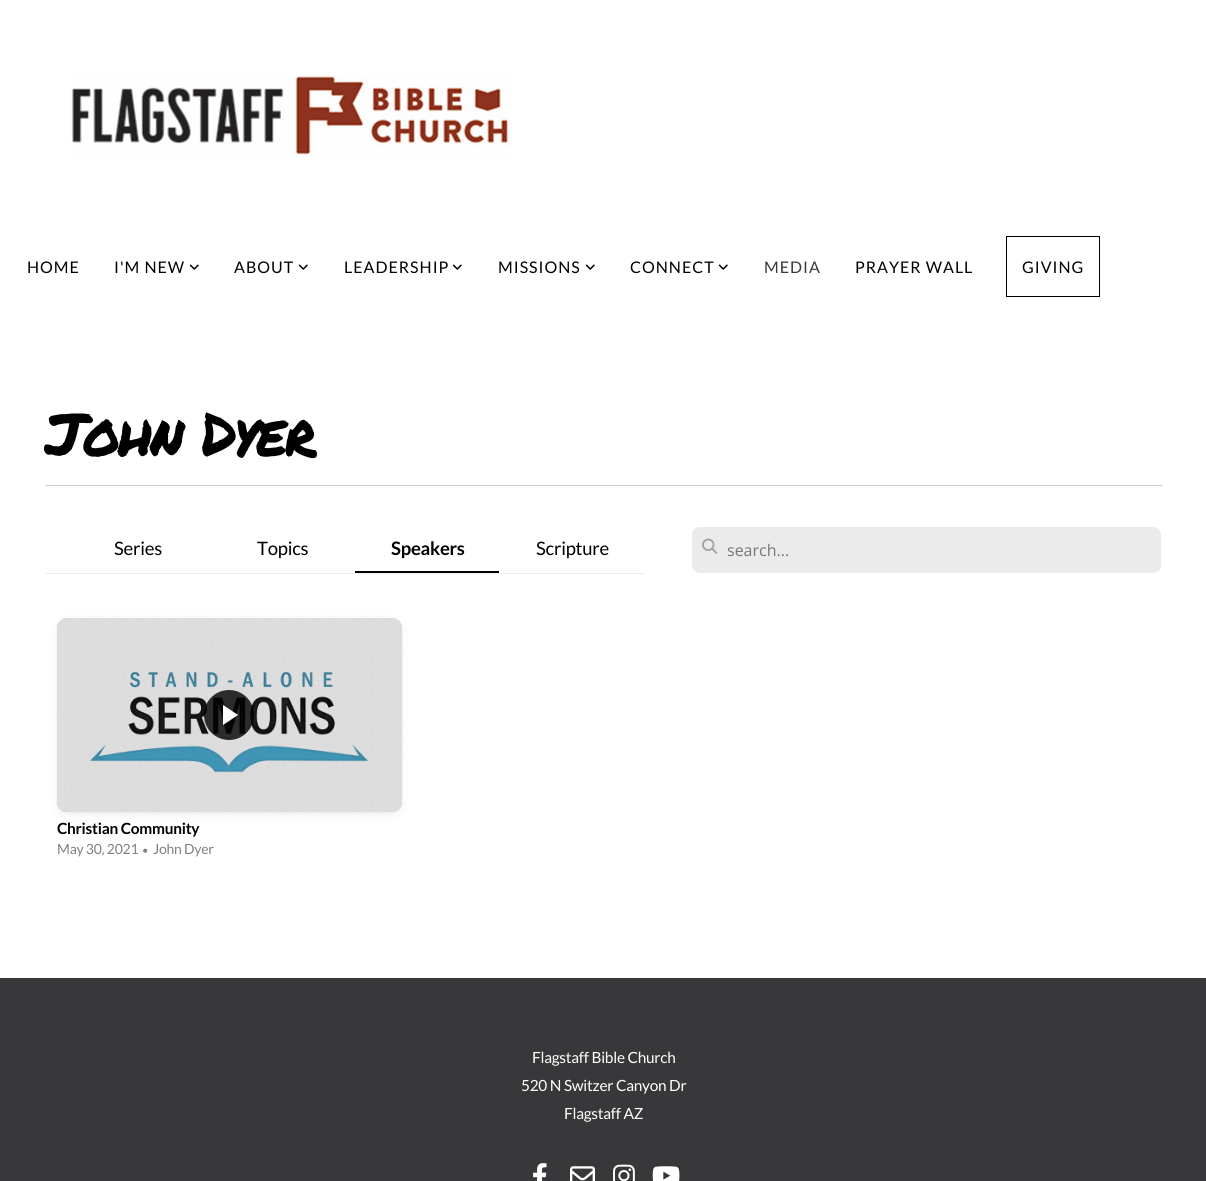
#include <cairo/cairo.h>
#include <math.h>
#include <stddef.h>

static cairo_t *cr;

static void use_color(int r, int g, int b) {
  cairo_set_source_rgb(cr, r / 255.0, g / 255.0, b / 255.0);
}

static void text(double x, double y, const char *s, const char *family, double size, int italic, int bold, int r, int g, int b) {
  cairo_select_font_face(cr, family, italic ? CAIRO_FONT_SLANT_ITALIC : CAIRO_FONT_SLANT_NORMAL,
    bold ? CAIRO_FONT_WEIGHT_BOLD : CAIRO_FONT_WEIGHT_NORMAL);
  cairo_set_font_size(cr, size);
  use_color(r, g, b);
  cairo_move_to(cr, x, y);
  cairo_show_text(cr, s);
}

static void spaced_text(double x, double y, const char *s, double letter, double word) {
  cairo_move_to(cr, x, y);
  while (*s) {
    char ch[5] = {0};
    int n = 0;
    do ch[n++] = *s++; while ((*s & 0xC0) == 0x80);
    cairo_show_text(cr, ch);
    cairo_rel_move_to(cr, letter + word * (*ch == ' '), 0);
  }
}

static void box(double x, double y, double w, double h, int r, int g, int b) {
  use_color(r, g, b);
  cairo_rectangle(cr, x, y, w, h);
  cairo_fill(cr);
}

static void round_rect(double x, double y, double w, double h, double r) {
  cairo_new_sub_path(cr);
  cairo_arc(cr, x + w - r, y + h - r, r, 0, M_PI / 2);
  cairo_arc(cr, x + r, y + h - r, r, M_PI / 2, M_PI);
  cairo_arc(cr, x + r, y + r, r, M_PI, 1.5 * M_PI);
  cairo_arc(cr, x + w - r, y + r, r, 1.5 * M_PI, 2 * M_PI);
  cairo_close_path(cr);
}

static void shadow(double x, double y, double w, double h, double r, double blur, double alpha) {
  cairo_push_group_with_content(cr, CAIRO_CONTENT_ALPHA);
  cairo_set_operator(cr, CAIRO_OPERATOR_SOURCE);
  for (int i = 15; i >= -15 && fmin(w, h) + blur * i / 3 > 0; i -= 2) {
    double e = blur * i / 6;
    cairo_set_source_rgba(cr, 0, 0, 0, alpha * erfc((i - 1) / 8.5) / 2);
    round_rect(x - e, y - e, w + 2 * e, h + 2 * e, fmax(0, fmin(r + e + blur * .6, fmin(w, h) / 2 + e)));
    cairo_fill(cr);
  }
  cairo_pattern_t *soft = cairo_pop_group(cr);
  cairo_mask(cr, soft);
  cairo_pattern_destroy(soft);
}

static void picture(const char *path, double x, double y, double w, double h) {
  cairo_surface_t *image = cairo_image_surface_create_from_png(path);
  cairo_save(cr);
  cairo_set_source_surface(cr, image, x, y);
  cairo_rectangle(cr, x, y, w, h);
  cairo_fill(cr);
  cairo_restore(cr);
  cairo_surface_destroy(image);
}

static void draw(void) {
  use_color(255, 255, 255);
  cairo_paint(cr);
  picture("img_01.png", 71, 76, 442, 81);
  picture("img_02.png", 189, 264, 10, 6);
  picture("img_02.png", 298, 264, 10, 6);
  picture("img_02.png", 452, 264, 10, 6);
  picture("img_02.png", 585, 264, 10, 6);
  picture("img_02.png", 718, 264, 10, 6);
  cairo_rectangle(cr, 1006.5, 236.5, 93, 60);
  use_color(0, 0, 0);
  cairo_set_line_width(cr, 1);
  cairo_stroke(cr);
  use_color(204, 204, 204);
  cairo_new_path(cr);
  cairo_move_to(cr, 1163, 486);
  cairo_line_to(cr, 45, 486);
  cairo_line_to(cr, 46, 485);
  cairo_line_to(cr, 1162, 485);
  cairo_close_path(cr);
  cairo_fill(cr);
  box(45, 573, 599, 1, 237, 238, 240);
  box(355, 571, 144, 2, 0, 0, 0);
  use_color(235, 235, 235);
  round_rect(692, 527, 469, 46, 8);
  cairo_fill(cr);
  picture("img_03.png", 702, 538, 16, 16);
  use_color(0, 0, 0);
  shadow(57, 619, 345, 194, 10, 1, 0.04);
  shadow(57, 621, 345, 194, 10, 5, 0.06);
  use_color(201, 206, 208);
  round_rect(57, 618, 345, 194, 10);
  cairo_fill(cr);
  picture("img_04.png", 57, 618, 345, 194);
  cairo_set_source_rgba(cr, 0, 0, 0, 0.8);
  cairo_arc(cr, 229, 715, 25, 0, 2 * M_PI);
  cairo_fill(cr);
  use_color(255, 255, 255);
  cairo_new_path(cr);
  cairo_move_to(cr, 223, 725);
  cairo_line_to(cr, 223, 705);
  cairo_line_to(cr, 238, 715);
  cairo_close_path(cr);
  cairo_fill(cr);
  box(0, 978, 1206, 203, 56, 56, 58);
  picture("img_05.png", 533, 1163, 14, 18);
  picture("img_06.png", 570, 1166, 25, 15);
  picture("img_07.png", 613, 1164, 22, 17);
  picture("img_08.png", 652, 1166, 28, 15);
  cairo_select_font_face(cr, "Lato", CAIRO_FONT_SLANT_NORMAL, CAIRO_FONT_WEIGHT_NORMAL);
  cairo_set_font_size(cr, 16);
  use_color(0, 0, 0);
  spaced_text(27, 273, "HOME", 1, 0);
  spaced_text(114, 273, "I'M NEW", 1, 0);
  spaced_text(234, 273, "ABOUT", 1, 0);
  spaced_text(344, 273, "LEADERSHIP", 1, 0);
  spaced_text(498, 273, "MISSIONS", 1, 0);
  spaced_text(630, 273, "CONNECT", 1, 0);
  use_color(56, 56, 58);
  spaced_text(764, 273, "MEDIA", 1, 0);
  use_color(0, 0, 0);
  spaced_text(855, 273, "PRAYER WALL", 1, 0);
  spaced_text(1022, 273, "GIVING", 1, 0);
  cairo_select_font_face(cr, "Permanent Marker", CAIRO_FONT_SLANT_NORMAL, CAIRO_FONT_WEIGHT_NORMAL);
  cairo_set_font_size(cr, 60);
  spaced_text(45, 456, "John Dyer", -2.5, 0);
  cairo_select_font_face(cr, "Lato", CAIRO_FONT_SLANT_NORMAL, CAIRO_FONT_WEIGHT_NORMAL);
  cairo_set_font_size(cr, 18.5);
  spaced_text(114, 555, "Series", -0.25, 0);
  spaced_text(257, 555, "Topics", -0.25, 0);
  cairo_select_font_face(cr, "Lato", CAIRO_FONT_SLANT_NORMAL, CAIRO_FONT_WEIGHT_BOLD);
  spaced_text(391, 555, "Speakers", -0.25, 0);
  cairo_select_font_face(cr, "Lato", CAIRO_FONT_SLANT_NORMAL, CAIRO_FONT_WEIGHT_NORMAL);
  spaced_text(536, 555, "Scripture", -0.25, 0);
  text(727, 556, "search...", "Open Sans", 16, 0, 0, 118, 118, 118);
  cairo_select_font_face(cr, "Lato", CAIRO_FONT_SLANT_NORMAL, CAIRO_FONT_WEIGHT_BOLD);
  cairo_set_font_size(cr, 15.4);
  use_color(0, 0, 0);
  spaced_text(57, 834, "Christian Community", -0.25, 0);
  cairo_select_font_face(cr, "Lato", CAIRO_FONT_SLANT_NORMAL, CAIRO_FONT_WEIGHT_NORMAL);
  cairo_set_font_size(cr, 14);
  use_color(128, 128, 128);
  spaced_text(57, 854, "May 30, 2021", -0.25, 0);
  cairo_set_font_size(cr, 11);
  spaced_text(142, 854, "•", -0.25, 0);
  cairo_set_font_size(cr, 14);
  spaced_text(153, 854, "John Dyer", -0.25, 0);
  cairo_set_font_size(cr, 15.4);
  use_color(255, 255, 255);
  spaced_text(532, 1063, "Flagstaff Bible Church", -0.25, 0);
  spaced_text(521, 1091, "520 N Switzer Canyon Dr", -0.25, 0);
  spaced_text(564, 1119, "Flagstaff AZ", -0.25, 0);
}

int main(void) {
  cairo_surface_t *surface = cairo_image_surface_create(CAIRO_FORMAT_RGB24, 1206, 1181);
  cr = cairo_create(surface);
  cairo_font_options_t *options = cairo_font_options_create();
  cairo_font_options_set_hint_metrics(options, CAIRO_HINT_METRICS_OFF);
  cairo_font_options_set_hint_style(options, CAIRO_HINT_STYLE_NONE);
  cairo_set_font_options(cr, options);
  cairo_set_miter_limit(cr, 4);
  draw();
  cairo_surface_write_to_png(surface, "out.png");
  cairo_font_options_destroy(options);
  cairo_destroy(cr);
  cairo_surface_destroy(surface);
  return 0;
}
